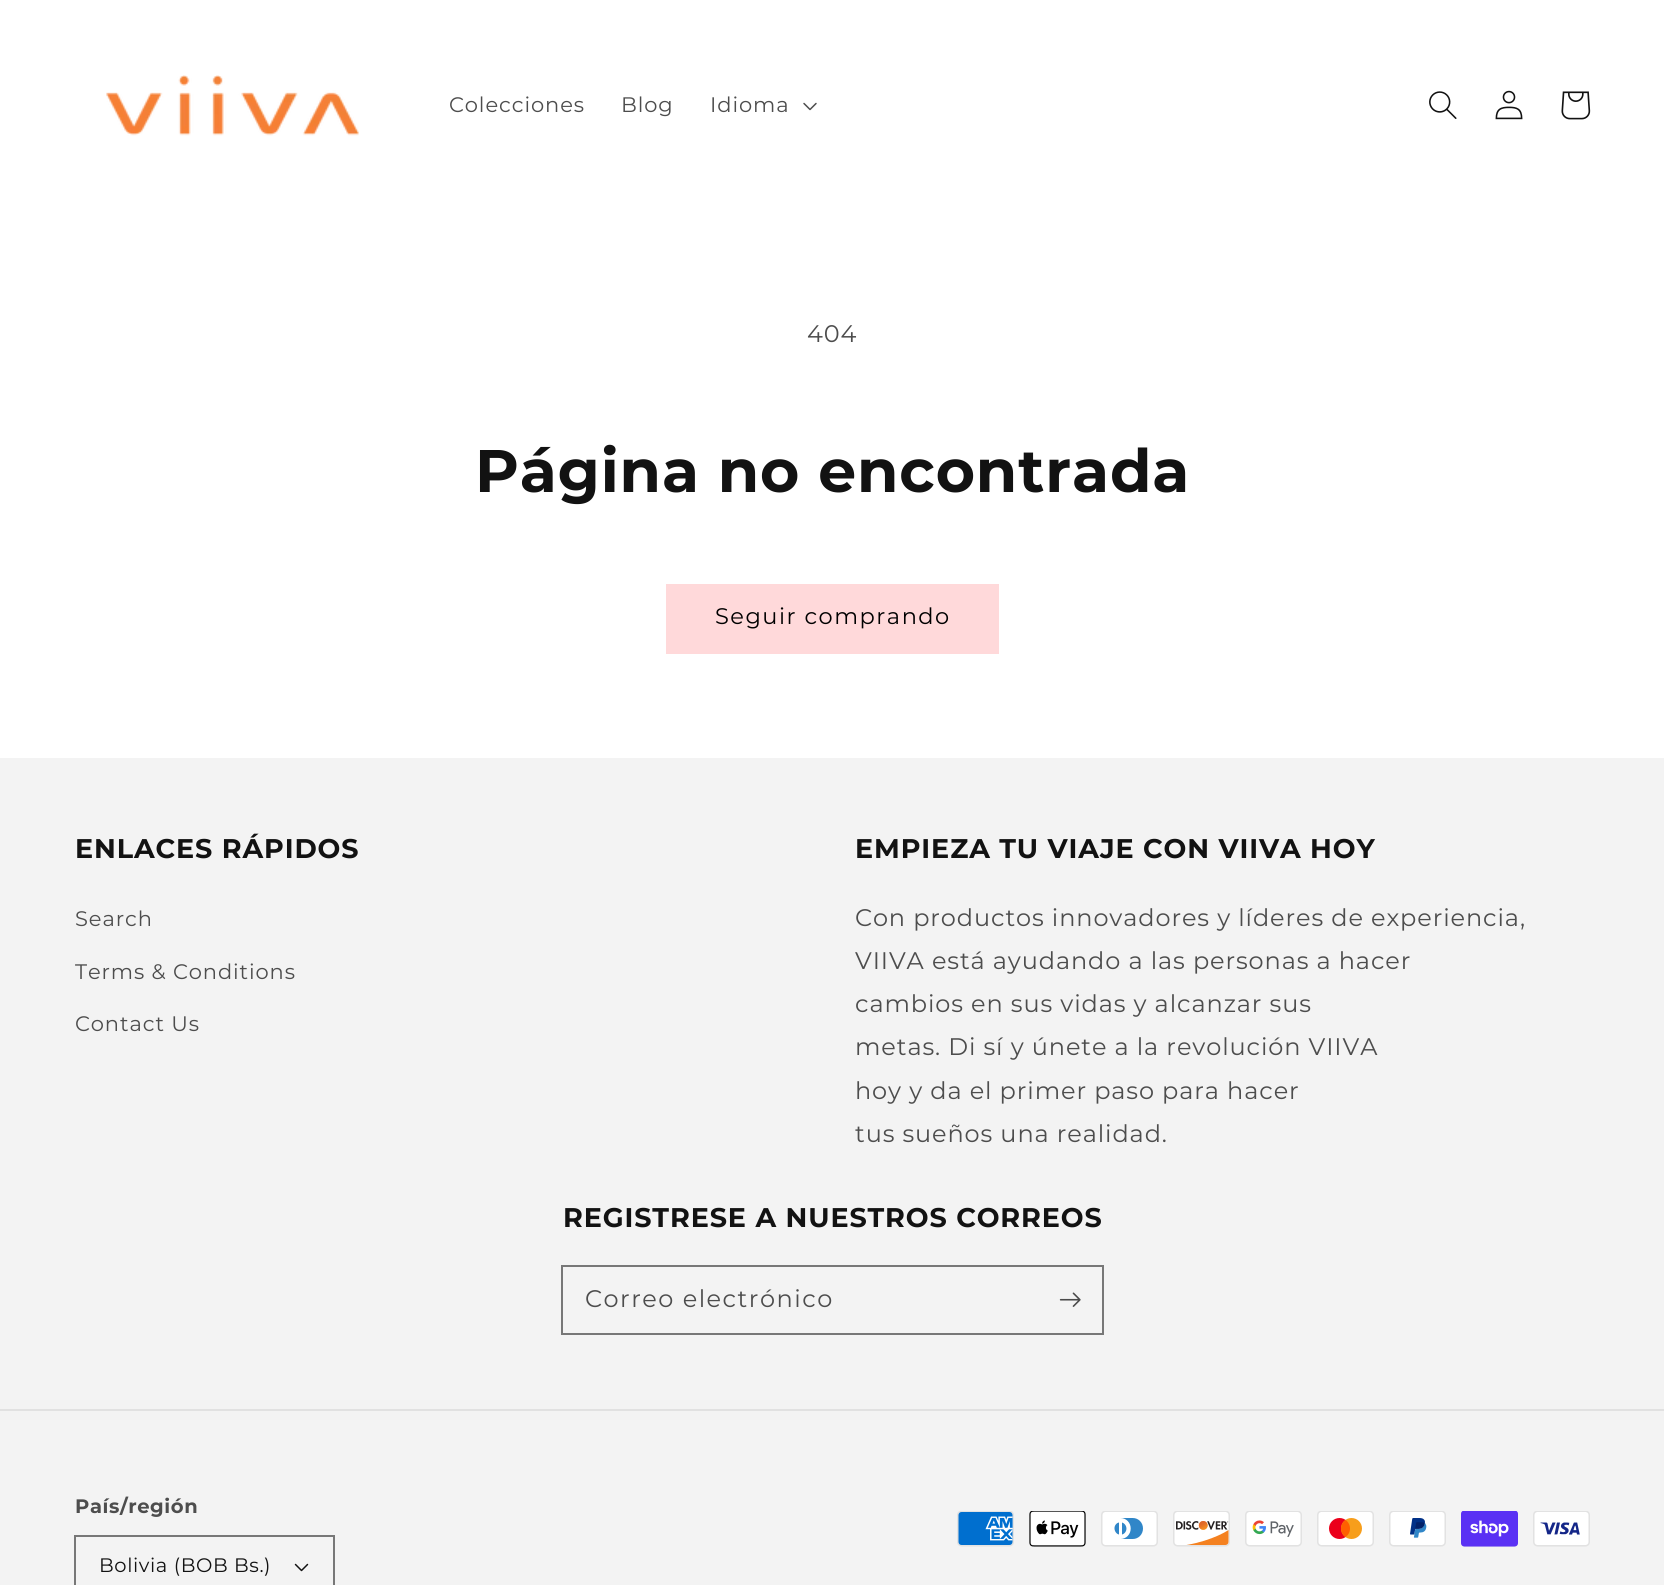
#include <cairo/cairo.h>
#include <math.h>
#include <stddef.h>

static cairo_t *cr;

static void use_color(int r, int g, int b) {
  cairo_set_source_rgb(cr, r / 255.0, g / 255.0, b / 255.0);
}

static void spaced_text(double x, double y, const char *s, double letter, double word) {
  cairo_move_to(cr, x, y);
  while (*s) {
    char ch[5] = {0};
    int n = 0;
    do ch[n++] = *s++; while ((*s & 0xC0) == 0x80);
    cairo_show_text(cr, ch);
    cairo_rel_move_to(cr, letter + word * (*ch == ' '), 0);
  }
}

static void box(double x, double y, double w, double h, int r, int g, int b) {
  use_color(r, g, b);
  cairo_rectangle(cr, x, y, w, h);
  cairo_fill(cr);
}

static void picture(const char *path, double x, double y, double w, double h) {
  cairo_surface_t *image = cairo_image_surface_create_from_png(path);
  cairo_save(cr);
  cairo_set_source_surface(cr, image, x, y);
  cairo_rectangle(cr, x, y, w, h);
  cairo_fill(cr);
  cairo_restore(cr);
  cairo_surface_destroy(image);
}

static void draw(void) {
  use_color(255, 255, 255);
  cairo_paint(cr);
  picture("img_01.png", 106, 75, 253, 61);
  picture("img_02.png", 803, 102, 14, 9);
  picture("img_03.png", 1429, 91, 28, 28);
  picture("img_04.png", 1495, 90, 28, 30);
  picture("img_05.png", 1561, 91, 30, 29);
  cairo_rectangle(cr, 667, 585, 331, 68);
  use_color(255, 217, 218);
  cairo_stroke(cr);
  box(668, 586, 329, 66, 255, 217, 218);
  box(0, 758, 1664, 827, 243, 243, 243);
  cairo_rectangle(cr, 562, 1266, 541, 68);
  use_color(119, 119, 119);
  cairo_stroke(cr);
  picture("img_06.png", 1059, 1292, 22, 15);
  box(0, 1409, 1664, 2, 225, 225, 225);
  cairo_rectangle(cr, 75, 1536, 259, 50);
  use_color(119, 119, 119);
  cairo_stroke(cr);
  picture("img_07.png", 294, 1563, 15, 9);
  picture("img_08.png", 957, 1511, 57, 36);
  picture("img_09.png", 1029, 1511, 57, 36);
  picture("img_10.png", 1101, 1511, 57, 36);
  picture("img_11.png", 1173, 1511, 57, 36);
  picture("img_12.png", 1245, 1511, 57, 36);
  picture("img_13.png", 1317, 1511, 57, 36);
  picture("img_14.png", 1389, 1511, 57, 36);
  picture("img_15.png", 1461, 1511, 57, 36);
  picture("img_16.png", 1533, 1511, 57, 36);
  cairo_select_font_face(cr, "Montserrat", CAIRO_FONT_SLANT_NORMAL, CAIRO_FONT_WEIGHT_NORMAL);
  cairo_set_font_size(cr, 21);
  use_color(77, 77, 77);
  spaced_text(449, 112, "Colecciones", 0.9, 0);
  spaced_text(621, 112, "Blog", 0.9, 0);
  spaced_text(710, 112, "Idioma", 0.9, 0);
  cairo_set_font_size(cr, 24);
  spaced_text(807, 342, "404", 0.9, 0);
  cairo_select_font_face(cr, "Montserrat", CAIRO_FONT_SLANT_NORMAL, CAIRO_FONT_WEIGHT_BOLD);
  cairo_set_font_size(cr, 60);
  use_color(18, 18, 18);
  spaced_text(475, 492, "Página no encontrada", 0.9, 0);
  cairo_select_font_face(cr, "Montserrat", CAIRO_FONT_SLANT_NORMAL, CAIRO_FONT_WEIGHT_NORMAL);
  cairo_set_font_size(cr, 22.5);
  use_color(0, 0, 0);
  spaced_text(715, 624, "Seguir comprando", 1.5, 0);
  cairo_select_font_face(cr, "Montserrat", CAIRO_FONT_SLANT_NORMAL, CAIRO_FONT_WEIGHT_BOLD);
  cairo_set_font_size(cr, 27);
  use_color(18, 18, 18);
  spaced_text(75, 858, "ENLACES RÁPIDOS", 0.9, 0);
  cairo_select_font_face(cr, "Montserrat", CAIRO_FONT_SLANT_NORMAL, CAIRO_FONT_WEIGHT_NORMAL);
  cairo_set_font_size(cr, 21);
  use_color(77, 77, 77);
  spaced_text(75, 926, "Search", 0.9, 0);
  spaced_text(75, 979, "Terms & Conditions", 0.9, 0);
  spaced_text(75, 1031, "Contact Us", 0.9, 0);
  cairo_select_font_face(cr, "Montserrat", CAIRO_FONT_SLANT_NORMAL, CAIRO_FONT_WEIGHT_BOLD);
  cairo_set_font_size(cr, 27);
  use_color(18, 18, 18);
  spaced_text(855, 858, "EMPIEZA TU VIAJE CON VIIVA HOY", 0.9, 0);
  cairo_select_font_face(cr, "Montserrat", CAIRO_FONT_SLANT_NORMAL, CAIRO_FONT_WEIGHT_NORMAL);
  cairo_set_font_size(cr, 24);
  use_color(77, 77, 77);
  spaced_text(855, 926, "Con productos innovadores y líderes de experiencia,", 0.9, 0);
  spaced_text(855, 969, "VIIVA está ayudando a las personas a hacer", 0.9, 0);
  spaced_text(855, 1012, "cambios en sus vidas y alcanzar sus", 0.9, 0);
  spaced_text(855, 1055, "metas. Di sí y únete a la revolución VIIVA", 0.9, 0);
  spaced_text(855, 1099, "hoy y da el primer paso para hacer", 0.9, 0);
  spaced_text(855, 1142, "tus sueños una realidad.", 0.9, 0);
  cairo_select_font_face(cr, "Montserrat", CAIRO_FONT_SLANT_NORMAL, CAIRO_FONT_WEIGHT_BOLD);
  cairo_set_font_size(cr, 27);
  use_color(18, 18, 18);
  spaced_text(563, 1227, "REGISTRESE A NUESTROS CORREOS", 0.9, 0);
  cairo_select_font_face(cr, "Montserrat", CAIRO_FONT_SLANT_NORMAL, CAIRO_FONT_WEIGHT_NORMAL);
  cairo_set_font_size(cr, 24);
  use_color(77, 77, 77);
  spaced_text(585, 1307, "Correo electrónico", 1.5, 0);
  cairo_select_font_face(cr, "Montserrat", CAIRO_FONT_SLANT_NORMAL, CAIRO_FONT_WEIGHT_BOLD);
  cairo_set_font_size(cr, 19.5);
  spaced_text(75, 1513, "País/región", 0.6, 0);
  cairo_select_font_face(cr, "Montserrat", CAIRO_FONT_SLANT_NORMAL, CAIRO_FONT_WEIGHT_NORMAL);
  use_color(18, 18, 18);
  spaced_text(99, 1572, "Bolivia (BOB Bs.)", 0.6, 0);
}

int main(void) {
  cairo_surface_t *surface = cairo_image_surface_create(CAIRO_FORMAT_RGB24, 1664, 1585);
  cr = cairo_create(surface);
  cairo_font_options_t *options = cairo_font_options_create();
  cairo_font_options_set_hint_metrics(options, CAIRO_HINT_METRICS_OFF);
  cairo_font_options_set_hint_style(options, CAIRO_HINT_STYLE_NONE);
  cairo_set_font_options(cr, options);
  cairo_set_miter_limit(cr, 4);
  draw();
  cairo_surface_write_to_png(surface, "out.png");
  cairo_font_options_destroy(options);
  cairo_destroy(cr);
  cairo_surface_destroy(surface);
  return 0;
}
